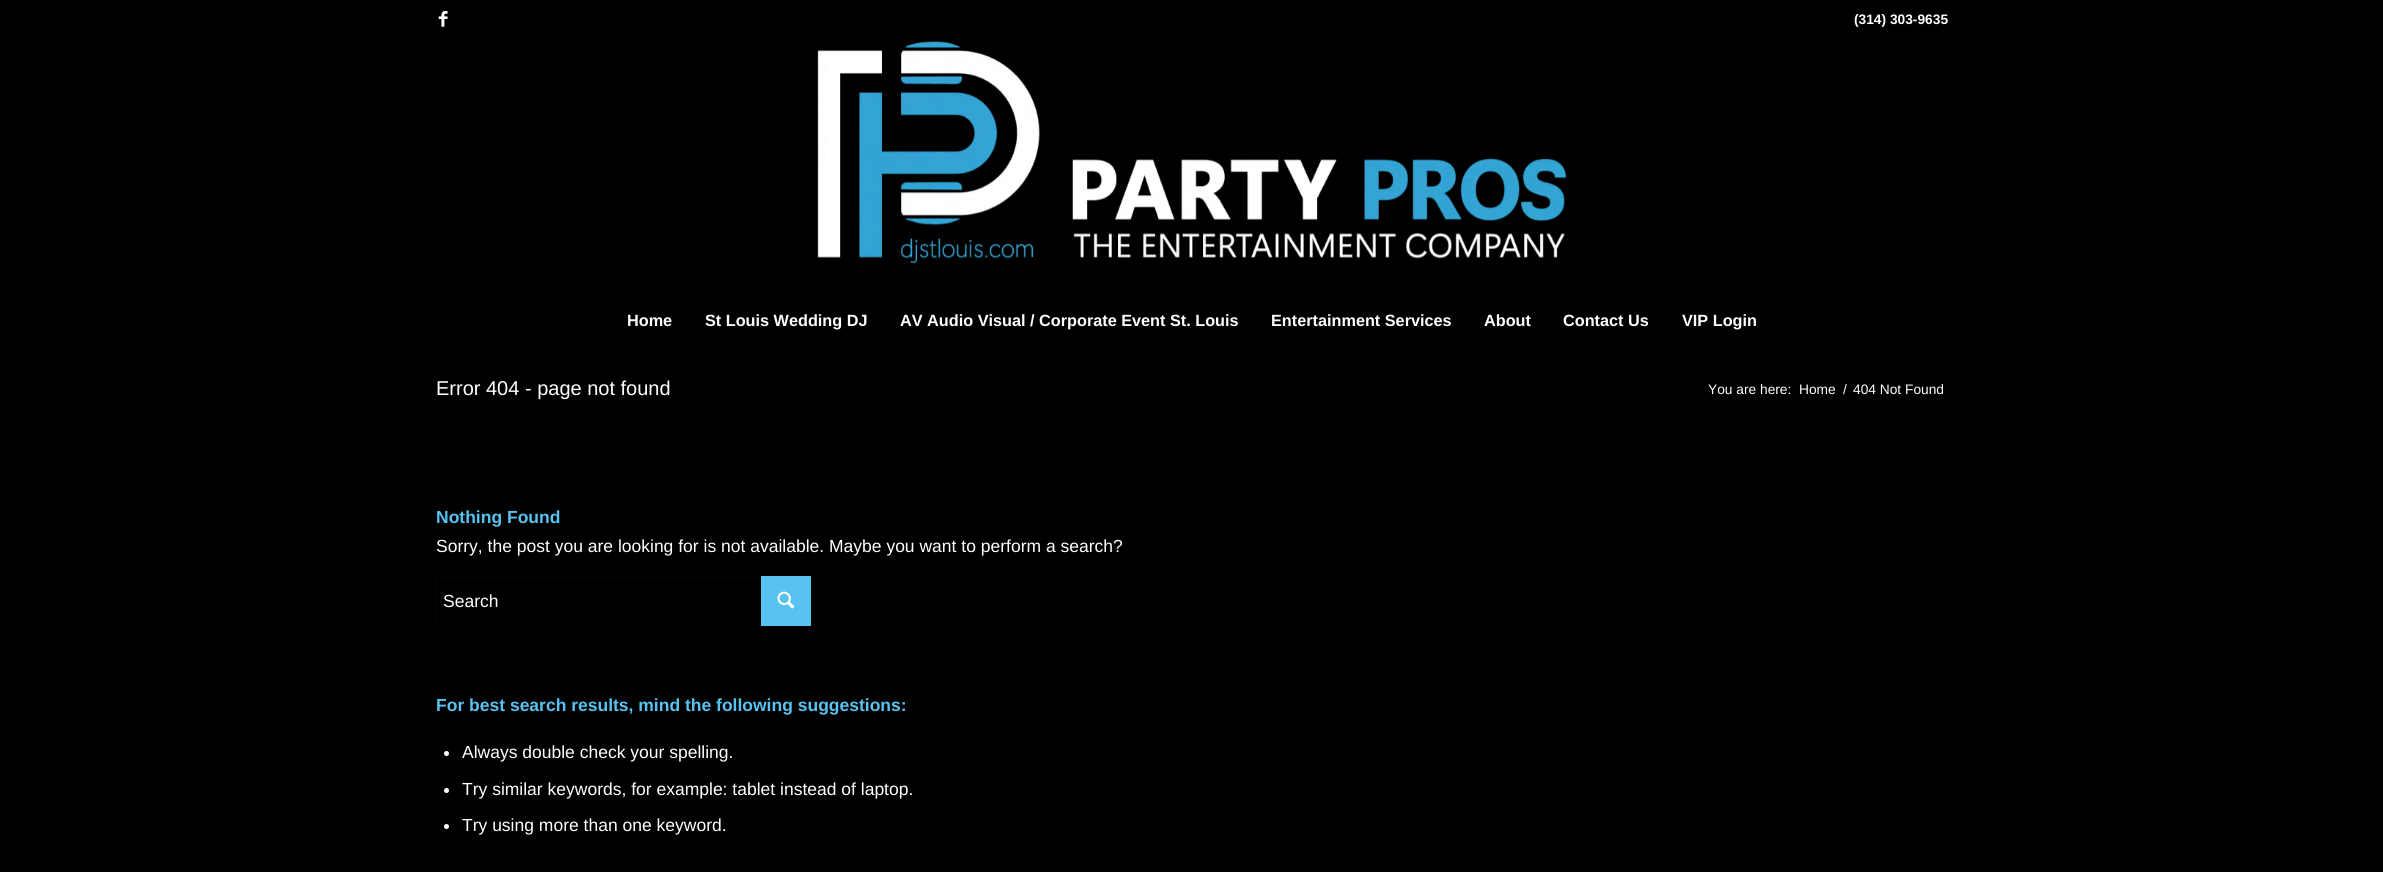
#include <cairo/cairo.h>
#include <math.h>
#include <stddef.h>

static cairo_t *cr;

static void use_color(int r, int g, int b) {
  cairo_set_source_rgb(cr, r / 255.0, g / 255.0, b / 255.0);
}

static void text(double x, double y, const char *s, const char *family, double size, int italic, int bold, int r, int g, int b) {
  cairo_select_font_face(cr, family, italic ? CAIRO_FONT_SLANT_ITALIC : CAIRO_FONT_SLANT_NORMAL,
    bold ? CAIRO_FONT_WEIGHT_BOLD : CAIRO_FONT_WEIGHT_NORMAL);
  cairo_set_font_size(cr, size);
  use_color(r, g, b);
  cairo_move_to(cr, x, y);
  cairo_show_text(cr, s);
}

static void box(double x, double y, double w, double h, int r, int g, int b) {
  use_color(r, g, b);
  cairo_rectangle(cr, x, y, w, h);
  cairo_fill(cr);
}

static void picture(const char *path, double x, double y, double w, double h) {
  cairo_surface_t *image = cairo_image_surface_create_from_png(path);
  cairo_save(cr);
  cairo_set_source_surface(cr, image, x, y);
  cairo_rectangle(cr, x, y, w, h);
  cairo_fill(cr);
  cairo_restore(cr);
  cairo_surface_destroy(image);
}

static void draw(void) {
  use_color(0, 0, 0);
  cairo_paint(cr);
  picture("img_01.png", 438, 11, 10, 16);
  picture("img_02.png", 817, 41, 750, 223);
  box(374, 425, 1637, 1, 5, 5, 5);
  cairo_rectangle(cr, 436.5, 576.5, 374, 49);
  cairo_set_line_width(cr, 1);
  cairo_stroke(cr);
  box(761, 576, 50, 50, 88, 194, 240);
  picture("img_03.png", 777, 591, 18, 18);
  use_color(255, 255, 255);
  cairo_arc(cr, 446.5, 753.5, 2.5, 0, 2 * M_PI);
  cairo_fill(cr);
  cairo_arc(cr, 446.5, 790.5, 2.5, 0, 2 * M_PI);
  cairo_fill(cr);
  cairo_arc(cr, 446.5, 826.5, 2.5, 0, 2 * M_PI);
  cairo_fill(cr);
  text(1854, 24, "(314) 303-9635", "Liberation Sans", 13.75, 0, 1, 255, 255, 255);
  text(627, 326, "Home", "Liberation Sans", 16.25, 0, 1, 255, 255, 255);
  text(705, 326, "St Louis Wedding DJ", "Liberation Sans", 16.25, 0, 1, 255, 255, 255);
  text(900, 326, "AV Audio Visual / Corporate Event St. Louis", "Liberation Sans", 16.25, 0, 1, 255, 255, 255);
  text(1271, 326, "Entertainment Services", "Liberation Sans", 16.25, 0, 1, 255, 255, 255);
  text(1484, 326, "About", "Liberation Sans", 16.25, 0, 1, 255, 255, 255);
  text(1563, 326, "Contact Us", "Liberation Sans", 16.25, 0, 1, 255, 255, 255);
  text(1682, 326, "VIP Login", "Liberation Sans", 16.25, 0, 1, 255, 255, 255);
  text(436, 395, "Error 404 - page not found", "Liberation Sans", 20, 0, 0, 255, 255, 255);
  text(1708, 394, "You are here:", "Liberation Sans", 13.75, 0, 0, 255, 255, 255);
  text(1799, 394, "Home", "Liberation Sans", 13.75, 0, 0, 255, 255, 255);
  text(1843, 394, "/", "Liberation Sans", 13.75, 0, 0, 255, 255, 255);
  text(1853, 394, "404 Not Found", "Liberation Sans", 13.75, 0, 0, 255, 255, 255);
  text(436, 523, "Nothing Found", "Liberation Sans", 17.5, 0, 1, 88, 194, 240);
  text(436, 552, "Sorry, the post you are looking for is not available. Maybe you want to perform a search?", "Liberation Sans", 17.5, 0, 0, 255, 255, 255);
  text(443, 607, "Search", "Liberation Sans", 17.5, 0, 0, 255, 255, 255);
  text(436, 711, "For best search results, mind the following suggestions:", "Liberation Sans", 17.5, 0, 1, 88, 194, 240);
  text(462, 758, "Always double check your spelling.", "Liberation Sans", 17.5, 0, 0, 255, 255, 255);
  text(462, 795, "Try similar keywords, for example: tablet instead of laptop.", "Liberation Sans", 17.5, 0, 0, 255, 255, 255);
  text(462, 831, "Try using more than one keyword.", "Liberation Sans", 17.5, 0, 0, 255, 255, 255);
}

int main(void) {
  cairo_surface_t *surface = cairo_image_surface_create(CAIRO_FORMAT_RGB24, 2383, 872);
  cr = cairo_create(surface);
  cairo_font_options_t *options = cairo_font_options_create();
  cairo_font_options_set_hint_metrics(options, CAIRO_HINT_METRICS_OFF);
  cairo_font_options_set_hint_style(options, CAIRO_HINT_STYLE_NONE);
  cairo_set_font_options(cr, options);
  cairo_set_miter_limit(cr, 4);
  draw();
  cairo_surface_write_to_png(surface, "out.png");
  cairo_font_options_destroy(options);
  cairo_destroy(cr);
  cairo_surface_destroy(surface);
  return 0;
}
